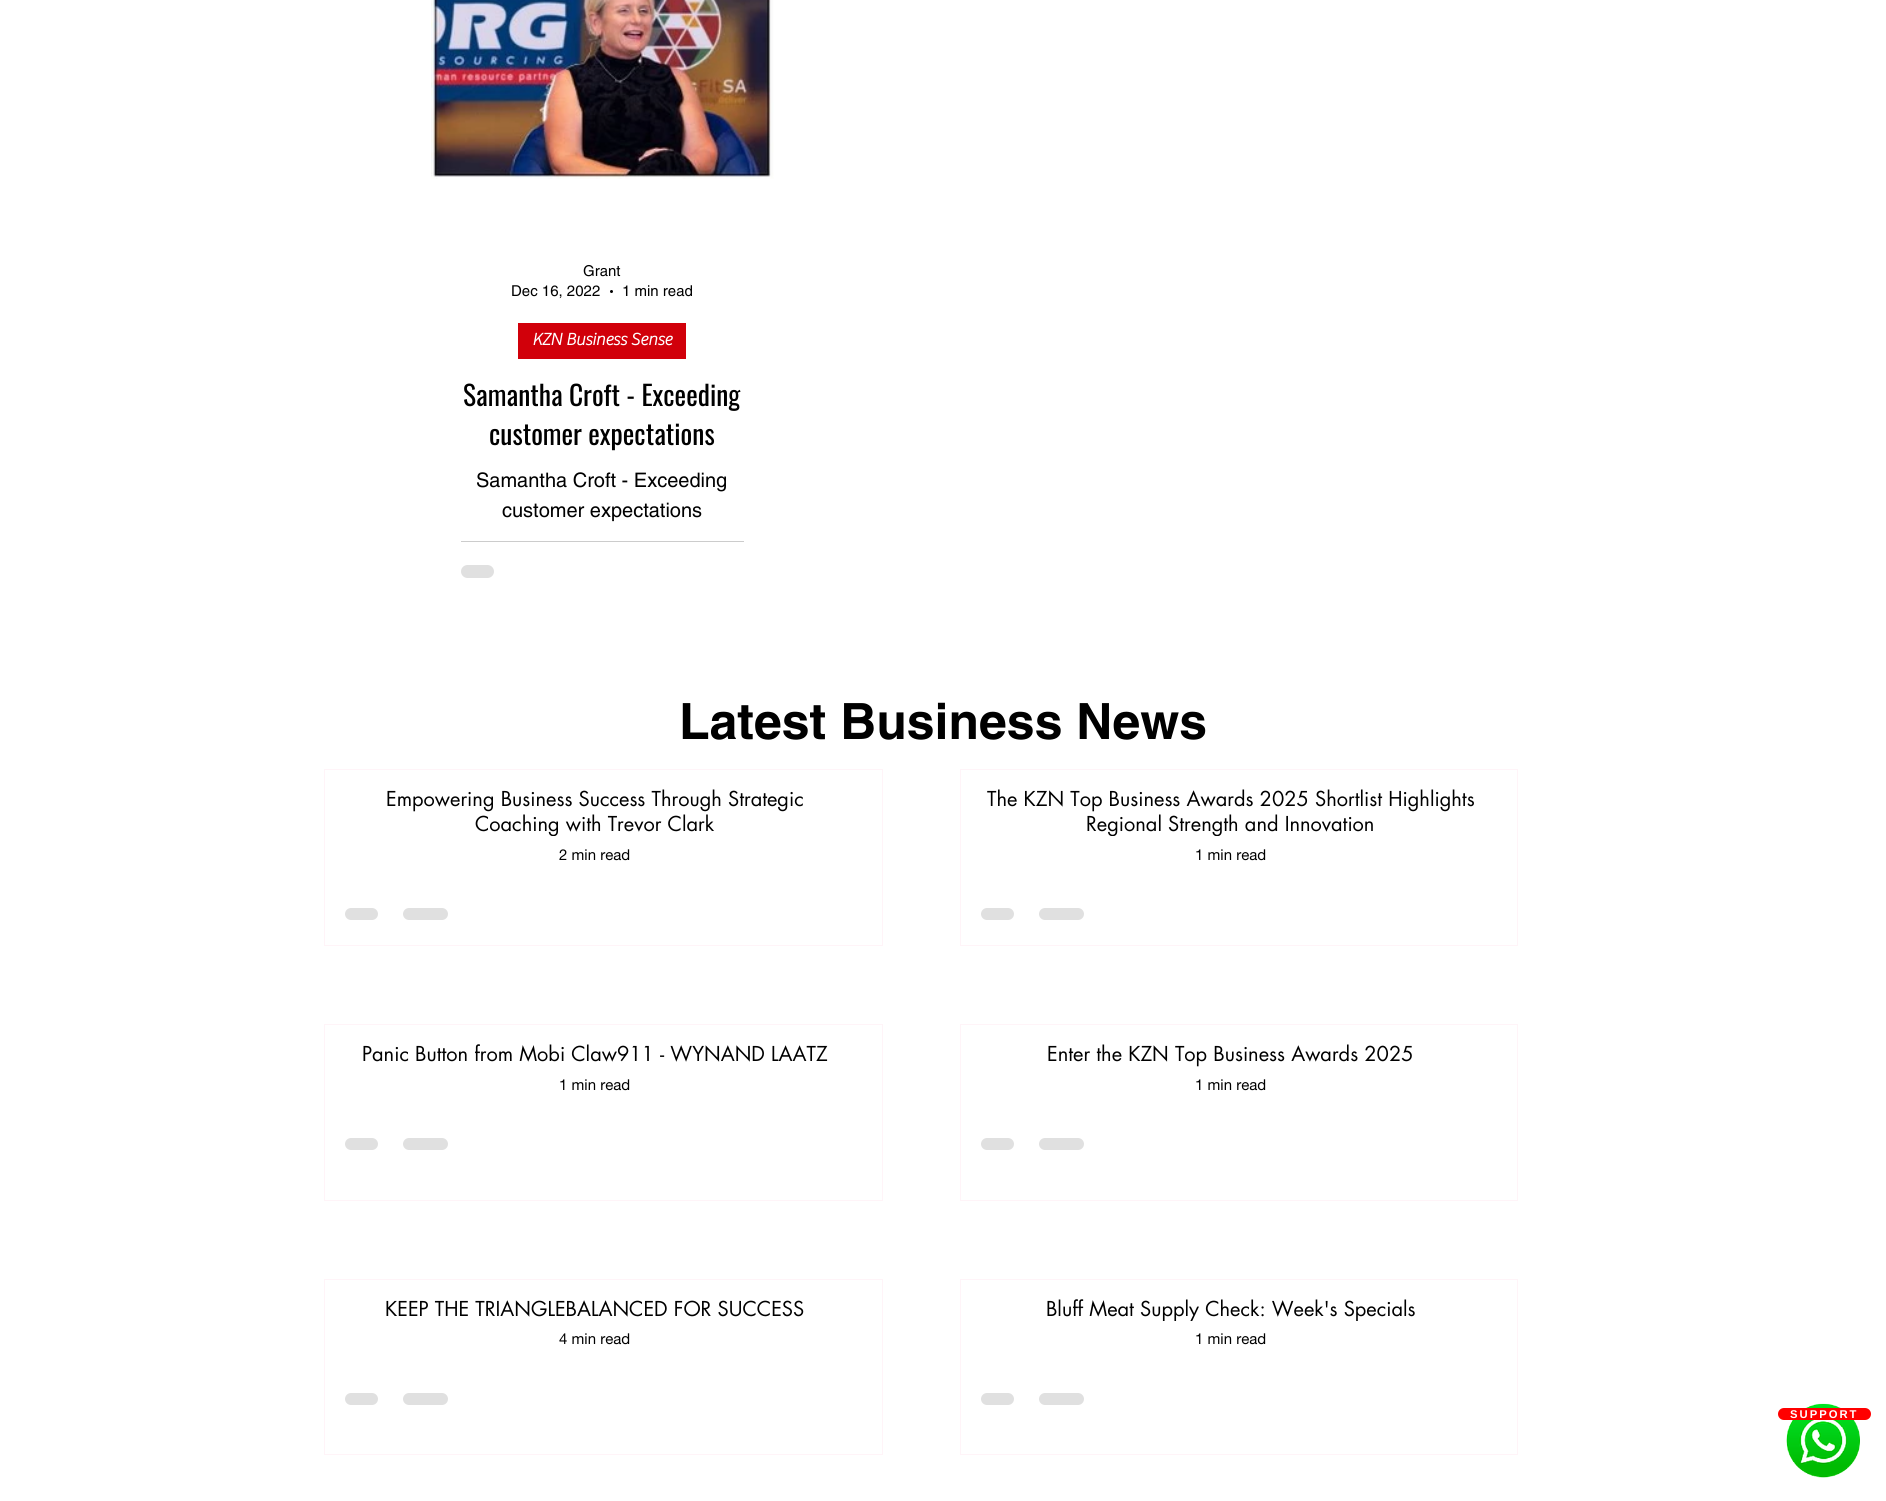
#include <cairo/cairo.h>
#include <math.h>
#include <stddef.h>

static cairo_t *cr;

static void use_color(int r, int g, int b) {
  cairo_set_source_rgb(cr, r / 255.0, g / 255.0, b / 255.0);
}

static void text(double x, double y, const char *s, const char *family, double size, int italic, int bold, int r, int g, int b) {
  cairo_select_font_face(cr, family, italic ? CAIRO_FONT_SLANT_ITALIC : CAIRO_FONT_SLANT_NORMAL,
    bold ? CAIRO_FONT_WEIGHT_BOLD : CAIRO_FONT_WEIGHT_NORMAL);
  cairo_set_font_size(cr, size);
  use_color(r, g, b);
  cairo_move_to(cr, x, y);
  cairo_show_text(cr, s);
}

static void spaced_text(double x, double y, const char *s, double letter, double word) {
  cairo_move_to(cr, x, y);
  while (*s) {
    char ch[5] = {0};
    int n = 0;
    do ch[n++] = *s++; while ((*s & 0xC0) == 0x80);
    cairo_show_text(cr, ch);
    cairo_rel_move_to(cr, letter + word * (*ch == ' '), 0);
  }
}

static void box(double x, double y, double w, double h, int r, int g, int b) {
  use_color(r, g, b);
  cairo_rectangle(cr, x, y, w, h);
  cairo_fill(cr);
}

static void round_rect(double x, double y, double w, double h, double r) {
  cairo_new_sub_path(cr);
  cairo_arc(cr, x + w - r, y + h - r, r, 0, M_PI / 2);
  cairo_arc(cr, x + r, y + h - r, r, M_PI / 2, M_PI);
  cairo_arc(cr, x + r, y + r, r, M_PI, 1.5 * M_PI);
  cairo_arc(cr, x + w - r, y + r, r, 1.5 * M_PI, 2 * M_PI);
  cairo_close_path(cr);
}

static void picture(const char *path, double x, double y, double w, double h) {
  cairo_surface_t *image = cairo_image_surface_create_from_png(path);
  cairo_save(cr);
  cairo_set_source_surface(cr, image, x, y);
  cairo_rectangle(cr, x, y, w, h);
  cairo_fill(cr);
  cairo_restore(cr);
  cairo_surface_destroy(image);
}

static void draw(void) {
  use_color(255, 255, 255);
  cairo_paint(cr);
  picture("img_01.png", 431, 0, 343, 179);
  use_color(0, 0, 0);
  cairo_arc(cr, 611.5, 291.5, 1.5, 0, 2 * M_PI);
  cairo_fill(cr);
  box(518, 323, 168, 36, 209, 0, 10);
  box(461, 541, 283, 1, 204, 204, 204);
  use_color(224, 224, 224);
  round_rect(461, 565, 33, 13, 6.5);
  cairo_fill(cr);
  cairo_rectangle(cr, 324.5, 769.5, 558, 176);
  use_color(255, 244, 248);
  cairo_set_line_width(cr, 1);
  cairo_stroke(cr);
  use_color(224, 224, 224);
  round_rect(345, 908, 33, 12, 6);
  cairo_fill(cr);
  round_rect(403, 908, 45, 12, 6);
  cairo_fill(cr);
  cairo_rectangle(cr, 960.5, 769.5, 557, 176);
  use_color(255, 244, 248);
  cairo_stroke(cr);
  use_color(224, 224, 224);
  round_rect(981, 908, 33, 12, 6);
  cairo_fill(cr);
  round_rect(1039, 908, 45, 12, 6);
  cairo_fill(cr);
  cairo_rectangle(cr, 324.5, 1024.5, 558, 176);
  use_color(255, 244, 248);
  cairo_stroke(cr);
  use_color(224, 224, 224);
  round_rect(345, 1138, 33, 12, 6);
  cairo_fill(cr);
  round_rect(403, 1138, 45, 12, 6);
  cairo_fill(cr);
  cairo_rectangle(cr, 960.5, 1024.5, 557, 176);
  use_color(255, 244, 248);
  cairo_stroke(cr);
  use_color(224, 224, 224);
  round_rect(981, 1138, 33, 12, 6);
  cairo_fill(cr);
  round_rect(1039, 1138, 45, 12, 6);
  cairo_fill(cr);
  cairo_rectangle(cr, 324.5, 1279.5, 558, 175);
  use_color(255, 244, 248);
  cairo_stroke(cr);
  use_color(224, 224, 224);
  round_rect(345, 1393, 33, 12, 6);
  cairo_fill(cr);
  round_rect(403, 1393, 45, 12, 6);
  cairo_fill(cr);
  cairo_rectangle(cr, 960.5, 1279.5, 557, 175);
  use_color(255, 244, 248);
  cairo_stroke(cr);
  use_color(224, 224, 224);
  round_rect(981, 1393, 33, 12, 6);
  cairo_fill(cr);
  round_rect(1039, 1393, 45, 12, 6);
  cairo_fill(cr);
  picture("img_02.png", 1786, 1403, 74, 75);
  use_color(255, 0, 0);
  round_rect(1778, 1408, 93, 12, 6);
  cairo_fill(cr);
  text(583, 276, "Grant", "helvetica", 15, 0, 0, 0, 0, 0);
  text(511, 296, "Dec 16, 2022", "helvetica", 15, 0, 0, 0, 0, 0);
  text(622, 296, "1 min read", "helvetica", 15, 0, 0, 0, 0, 0);
  text(532, 345, "KZN Business Sense", "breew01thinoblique", 17.5, 0, 1, 255, 255, 255);
  text(463, 406, "Samantha Croft - Exceeding", "Oswald", 27.5, 0, 0, 0, 0, 0);
  text(489, 445, "customer expectations", "Oswald", 27.5, 0, 0, 0, 0, 0);
  text(476, 487, "Samantha Croft - Exceeding", "helvetica", 20, 0, 0, 0, 0, 0);
  text(502, 517, "customer expectations", "helvetica", 20, 0, 0, 0, 0, 0);
  text(679, 739, "Latest Business News", "helvetica", 50, 0, 1, 0, 0, 0);
  text(386, 806, "Empowering Business Success Through Strategic", "futura", 20, 0, 0, 0, 0, 0);
  cairo_save(cr);
  cairo_rectangle(cr, 345, 786, 501, 50);
  cairo_clip(cr);
  text(475, 831, "Coaching with Trevor Clark", "futura", 20, 0, 0, 0, 0, 0);
  cairo_restore(cr);
  text(559, 860, "2 min read", "helvetica neue", 15, 0, 0, 0, 0, 0);
  text(987, 806, "The KZN Top Business Awards 2025 Shortlist Highlights", "futura", 20, 0, 0, 0, 0, 0);
  cairo_save(cr);
  cairo_rectangle(cr, 981, 786, 500, 50);
  cairo_clip(cr);
  text(1086, 831, "Regional Strength and Innovation", "futura", 20, 0, 0, 0, 0, 0);
  cairo_restore(cr);
  text(1195, 860, "1 min read", "helvetica neue", 15, 0, 0, 0, 0, 0);
  text(362, 1061, "Panic Button from Mobi Claw911 - WYNAND LAATZ", "futura", 20, 0, 0, 0, 0, 0);
  text(559, 1090, "1 min read", "helvetica neue", 15, 0, 0, 0, 0, 0);
  text(1047, 1061, "Enter the KZN Top Business Awards 2025", "futura", 20, 0, 0, 0, 0, 0);
  text(1195, 1090, "1 min read", "helvetica neue", 15, 0, 0, 0, 0, 0);
  text(385, 1316, "KEEP THE TRIANGLEBALANCED FOR SUCCESS", "futura", 20, 0, 0, 0, 0, 0);
  text(559, 1344, "4 min read", "helvetica neue", 15, 0, 0, 0, 0, 0);
  cairo_save(cr);
  cairo_rectangle(cr, 981, 1296, 500, 25);
  cairo_clip(cr);
  text(1046, 1316, "Bluff Meat Supply Check: Week's Specials", "futura", 20, 0, 0, 0, 0, 0);
  cairo_restore(cr);
  text(1195, 1344, "1 min read", "helvetica neue", 15, 0, 0, 0, 0, 0);
  cairo_select_font_face(cr, "Liberation Sans", CAIRO_FONT_SLANT_NORMAL, CAIRO_FONT_WEIGHT_BOLD);
  cairo_set_font_size(cr, 11.25);
  use_color(255, 255, 255);
  spaced_text(1790, 1418, "SUPPORT", 2, 0);
}

int main(void) {
  cairo_surface_t *surface = cairo_image_surface_create(CAIRO_FORMAT_RGB24, 1886, 1501);
  cr = cairo_create(surface);
  cairo_font_options_t *options = cairo_font_options_create();
  cairo_font_options_set_hint_metrics(options, CAIRO_HINT_METRICS_OFF);
  cairo_font_options_set_hint_style(options, CAIRO_HINT_STYLE_NONE);
  cairo_set_font_options(cr, options);
  cairo_set_miter_limit(cr, 4);
  draw();
  cairo_surface_write_to_png(surface, "out.png");
  cairo_font_options_destroy(options);
  cairo_destroy(cr);
  cairo_surface_destroy(surface);
  return 0;
}
